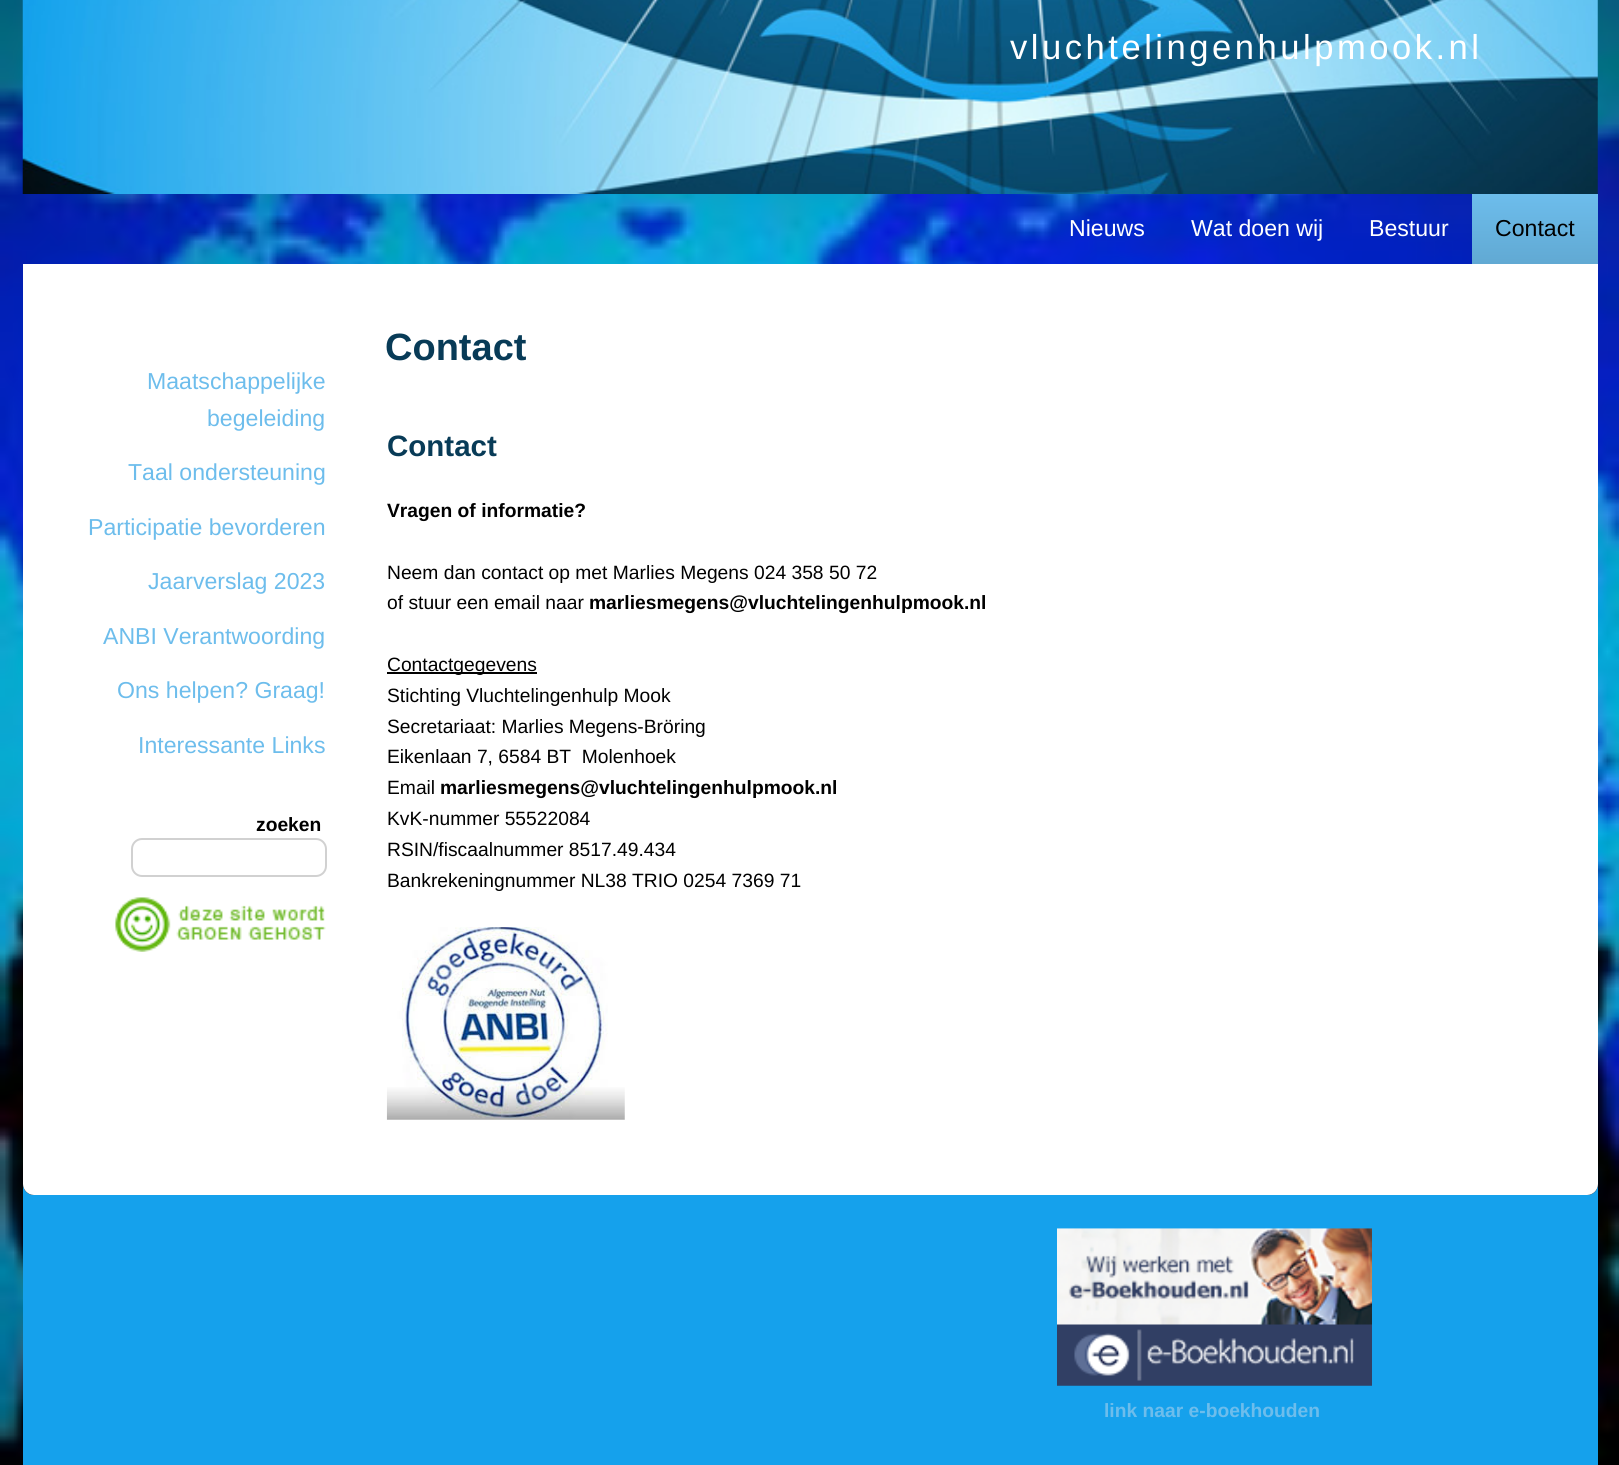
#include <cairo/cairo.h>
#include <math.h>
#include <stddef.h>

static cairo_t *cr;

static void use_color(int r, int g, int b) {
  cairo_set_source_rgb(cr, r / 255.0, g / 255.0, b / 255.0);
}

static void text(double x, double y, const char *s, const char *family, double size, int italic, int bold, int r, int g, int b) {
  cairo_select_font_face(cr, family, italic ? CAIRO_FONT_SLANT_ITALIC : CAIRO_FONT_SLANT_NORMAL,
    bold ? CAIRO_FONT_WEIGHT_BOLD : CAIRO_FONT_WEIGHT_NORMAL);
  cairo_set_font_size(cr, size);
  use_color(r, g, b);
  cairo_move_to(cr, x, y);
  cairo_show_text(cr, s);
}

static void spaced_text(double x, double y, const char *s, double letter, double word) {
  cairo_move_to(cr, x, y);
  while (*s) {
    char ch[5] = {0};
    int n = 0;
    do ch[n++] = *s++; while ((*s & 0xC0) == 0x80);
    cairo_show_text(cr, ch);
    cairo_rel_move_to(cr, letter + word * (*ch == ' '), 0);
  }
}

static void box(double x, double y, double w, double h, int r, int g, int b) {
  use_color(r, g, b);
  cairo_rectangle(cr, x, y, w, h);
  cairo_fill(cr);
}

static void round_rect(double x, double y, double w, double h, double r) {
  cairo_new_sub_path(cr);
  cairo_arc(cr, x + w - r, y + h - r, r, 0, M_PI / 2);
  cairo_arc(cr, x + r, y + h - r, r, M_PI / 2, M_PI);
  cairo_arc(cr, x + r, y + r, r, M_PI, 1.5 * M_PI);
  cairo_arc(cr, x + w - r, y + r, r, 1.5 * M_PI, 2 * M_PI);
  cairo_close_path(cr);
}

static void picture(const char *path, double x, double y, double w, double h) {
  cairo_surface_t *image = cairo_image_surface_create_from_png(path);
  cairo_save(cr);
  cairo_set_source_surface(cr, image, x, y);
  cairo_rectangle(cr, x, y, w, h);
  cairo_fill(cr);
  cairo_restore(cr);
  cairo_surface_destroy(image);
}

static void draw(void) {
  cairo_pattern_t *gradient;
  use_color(255, 255, 255);
  cairo_paint(cr);
  picture("img_01.png", 0, 0, 1619, 1465);
  picture("img_02.png", 22, 0, 1576, 194);
  gradient = cairo_pattern_create_linear(1535, 194, 1535, 264);
  cairo_pattern_add_color_stop_rgba(gradient, 0, 0.427, 0.741, 0.925, 1);
  cairo_pattern_add_color_stop_rgba(gradient, 1, 0.38, 0.663, 0.827, 1);
  cairo_set_source(cr, gradient);
  cairo_pattern_destroy(gradient);
  cairo_rectangle(cr, 1472, 194, 126, 70);
  cairo_fill(cr);
  box(23, 1213, 1575, 252, 21, 161, 236);
  picture("img_05.png", 1057, 1228, 315, 158);
  cairo_save(cr);
  cairo_rectangle(cr, 23, 1167, 1575, 46);
  cairo_clip(cr);
  cairo_new_path(cr);
  cairo_move_to(cr, -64.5, 1079.5);
  cairo_line_to(cr, 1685.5, 1079.5);
  cairo_line_to(cr, 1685.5, 1184);
  cairo_curve_to(cr, 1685.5, 1238.5, 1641.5, 1282.5, 1587, 1282.5);
  cairo_line_to(cr, 34, 1282.5);
  cairo_curve_to(cr, -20.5, 1282.5, -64.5, 1238.5, -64.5, 1184);
  cairo_close_path(cr);
  cairo_set_line_width(cr, 175);
  cairo_stroke(cr);
  cairo_restore(cr);
  use_color(255, 255, 255);
  cairo_new_path(cr);
  cairo_move_to(cr, 23, 264);
  cairo_line_to(cr, 1598, 264);
  cairo_line_to(cr, 1598, 1184);
  cairo_curve_to(cr, 1598, 1190, 1593, 1195, 1587, 1195);
  cairo_line_to(cr, 34, 1195);
  cairo_curve_to(cr, 28, 1195, 23, 1190, 23, 1184);
  cairo_close_path(cr);
  cairo_fill(cr);
  round_rect(132, 839, 194, 37, 10);
  use_color(209, 209, 209);
  cairo_stroke(cr);
  picture("img_03.png", 115, 897, 211, 55);
  box(387, 672, 150, 2, 0, 0, 0);
  picture("img_04.png", 386, 927, 239, 193);
  cairo_select_font_face(cr, "Liberation Sans", CAIRO_FONT_SLANT_NORMAL, CAIRO_FONT_WEIGHT_NORMAL);
  cairo_set_font_size(cr, 34.6);
  use_color(255, 255, 255);
  spaced_text(1010, 59, "vluchtelingenhulpmook.nl", 3.5, 0);
  text(1069, 236, "Nieuws", "Liberation Sans", 23.1, 0, 0, 255, 255, 255);
  text(1191, 236, "Wat doen wij", "Liberation Sans", 23.1, 0, 0, 255, 255, 255);
  text(1369, 236, "Bestuur", "Liberation Sans", 23.1, 0, 0, 255, 255, 255);
  text(1495, 236, "Contact", "Liberation Sans", 23.1, 0, 0, 0, 0, 0);
  text(147, 389, "Maatschappelijke", "Liberation Sans", 23.1, 0, 0, 109, 189, 236);
  text(207, 426, "begeleiding", "Liberation Sans", 23.1, 0, 0, 109, 189, 236);
  text(128, 480, "Taal ondersteuning", "Liberation Sans", 23.1, 0, 0, 109, 189, 236);
  text(88, 535, "Participatie bevorderen", "Liberation Sans", 23.1, 0, 0, 109, 189, 236);
  text(148, 589, "Jaarverslag 2023", "Liberation Sans", 23.1, 0, 0, 109, 189, 236);
  text(103, 644, "ANBI Verantwoording", "Liberation Sans", 23.1, 0, 0, 109, 189, 236);
  text(117, 698, "Ons helpen? Graag!", "Liberation Sans", 23.1, 0, 0, 109, 189, 236);
  text(138, 753, "Interessante Links", "Liberation Sans", 23.1, 0, 0, 109, 189, 236);
  text(256, 831, "zoeken", "Liberation Sans", 19.25, 0, 1, 0, 0, 0);
  text(385, 360, "Contact", "Liberation Sans", 38, 0, 1, 8, 59, 87);
  text(387, 456, "Contact", "Liberation Sans", 29.5, 0, 1, 8, 59, 87);
  text(387, 517, "Vragen of informatie?", "Liberation Sans", 19.25, 0, 1, 0, 0, 0);
  text(387, 579, "Neem dan contact op met Marlies Megens 024 358 50 72", "Liberation Sans", 19.25, 0, 0, 0, 0, 0);
  text(387, 609, "of stuur een email naar", "Liberation Sans", 19.25, 0, 0, 0, 0, 0);
  text(589, 609, "marliesmegens@vluchtelingenhulpmook.nl", "Liberation Sans", 19.25, 0, 1, 0, 0, 0);
  text(387, 671, "Contactgegevens", "Liberation Sans", 19.25, 0, 0, 0, 0, 0);
  text(387, 702, "Stichting Vluchtelingenhulp Mook", "Liberation Sans", 19.25, 0, 0, 0, 0, 0);
  text(387, 733, "Secretariaat: Marlies Megens-Bröring", "Liberation Sans", 19.25, 0, 0, 0, 0, 0);
  text(387, 763, "Eikenlaan 7, 6584 BT  Molenhoek", "Liberation Sans", 19.25, 0, 0, 0, 0, 0);
  text(387, 794, "Email", "Liberation Sans", 19.25, 0, 0, 0, 0, 0);
  text(440, 794, "marliesmegens@vluchtelingenhulpmook.nl", "Liberation Sans", 19.25, 0, 1, 0, 0, 0);
  text(387, 825, "KvK-nummer 55522084", "Liberation Sans", 19.25, 0, 0, 0, 0, 0);
  text(387, 856, "RSIN/fiscaalnummer 8517.49.434", "Liberation Sans", 19.25, 0, 0, 0, 0, 0);
  text(387, 887, "Bankrekeningnummer NL38 TRIO 0254 7369 71", "Liberation Sans", 19.25, 0, 0, 0, 0, 0);
  text(1104, 1417, "link naar e-boekhouden", "Liberation Sans", 19.25, 0, 1, 109, 189, 236);
}

int main(void) {
  cairo_surface_t *surface = cairo_image_surface_create(CAIRO_FORMAT_RGB24, 1619, 1465);
  cr = cairo_create(surface);
  cairo_font_options_t *options = cairo_font_options_create();
  cairo_font_options_set_hint_metrics(options, CAIRO_HINT_METRICS_OFF);
  cairo_font_options_set_hint_style(options, CAIRO_HINT_STYLE_NONE);
  cairo_set_font_options(cr, options);
  cairo_set_miter_limit(cr, 4);
  draw();
  cairo_surface_write_to_png(surface, "out.png");
  cairo_font_options_destroy(options);
  cairo_destroy(cr);
  cairo_surface_destroy(surface);
  return 0;
}
